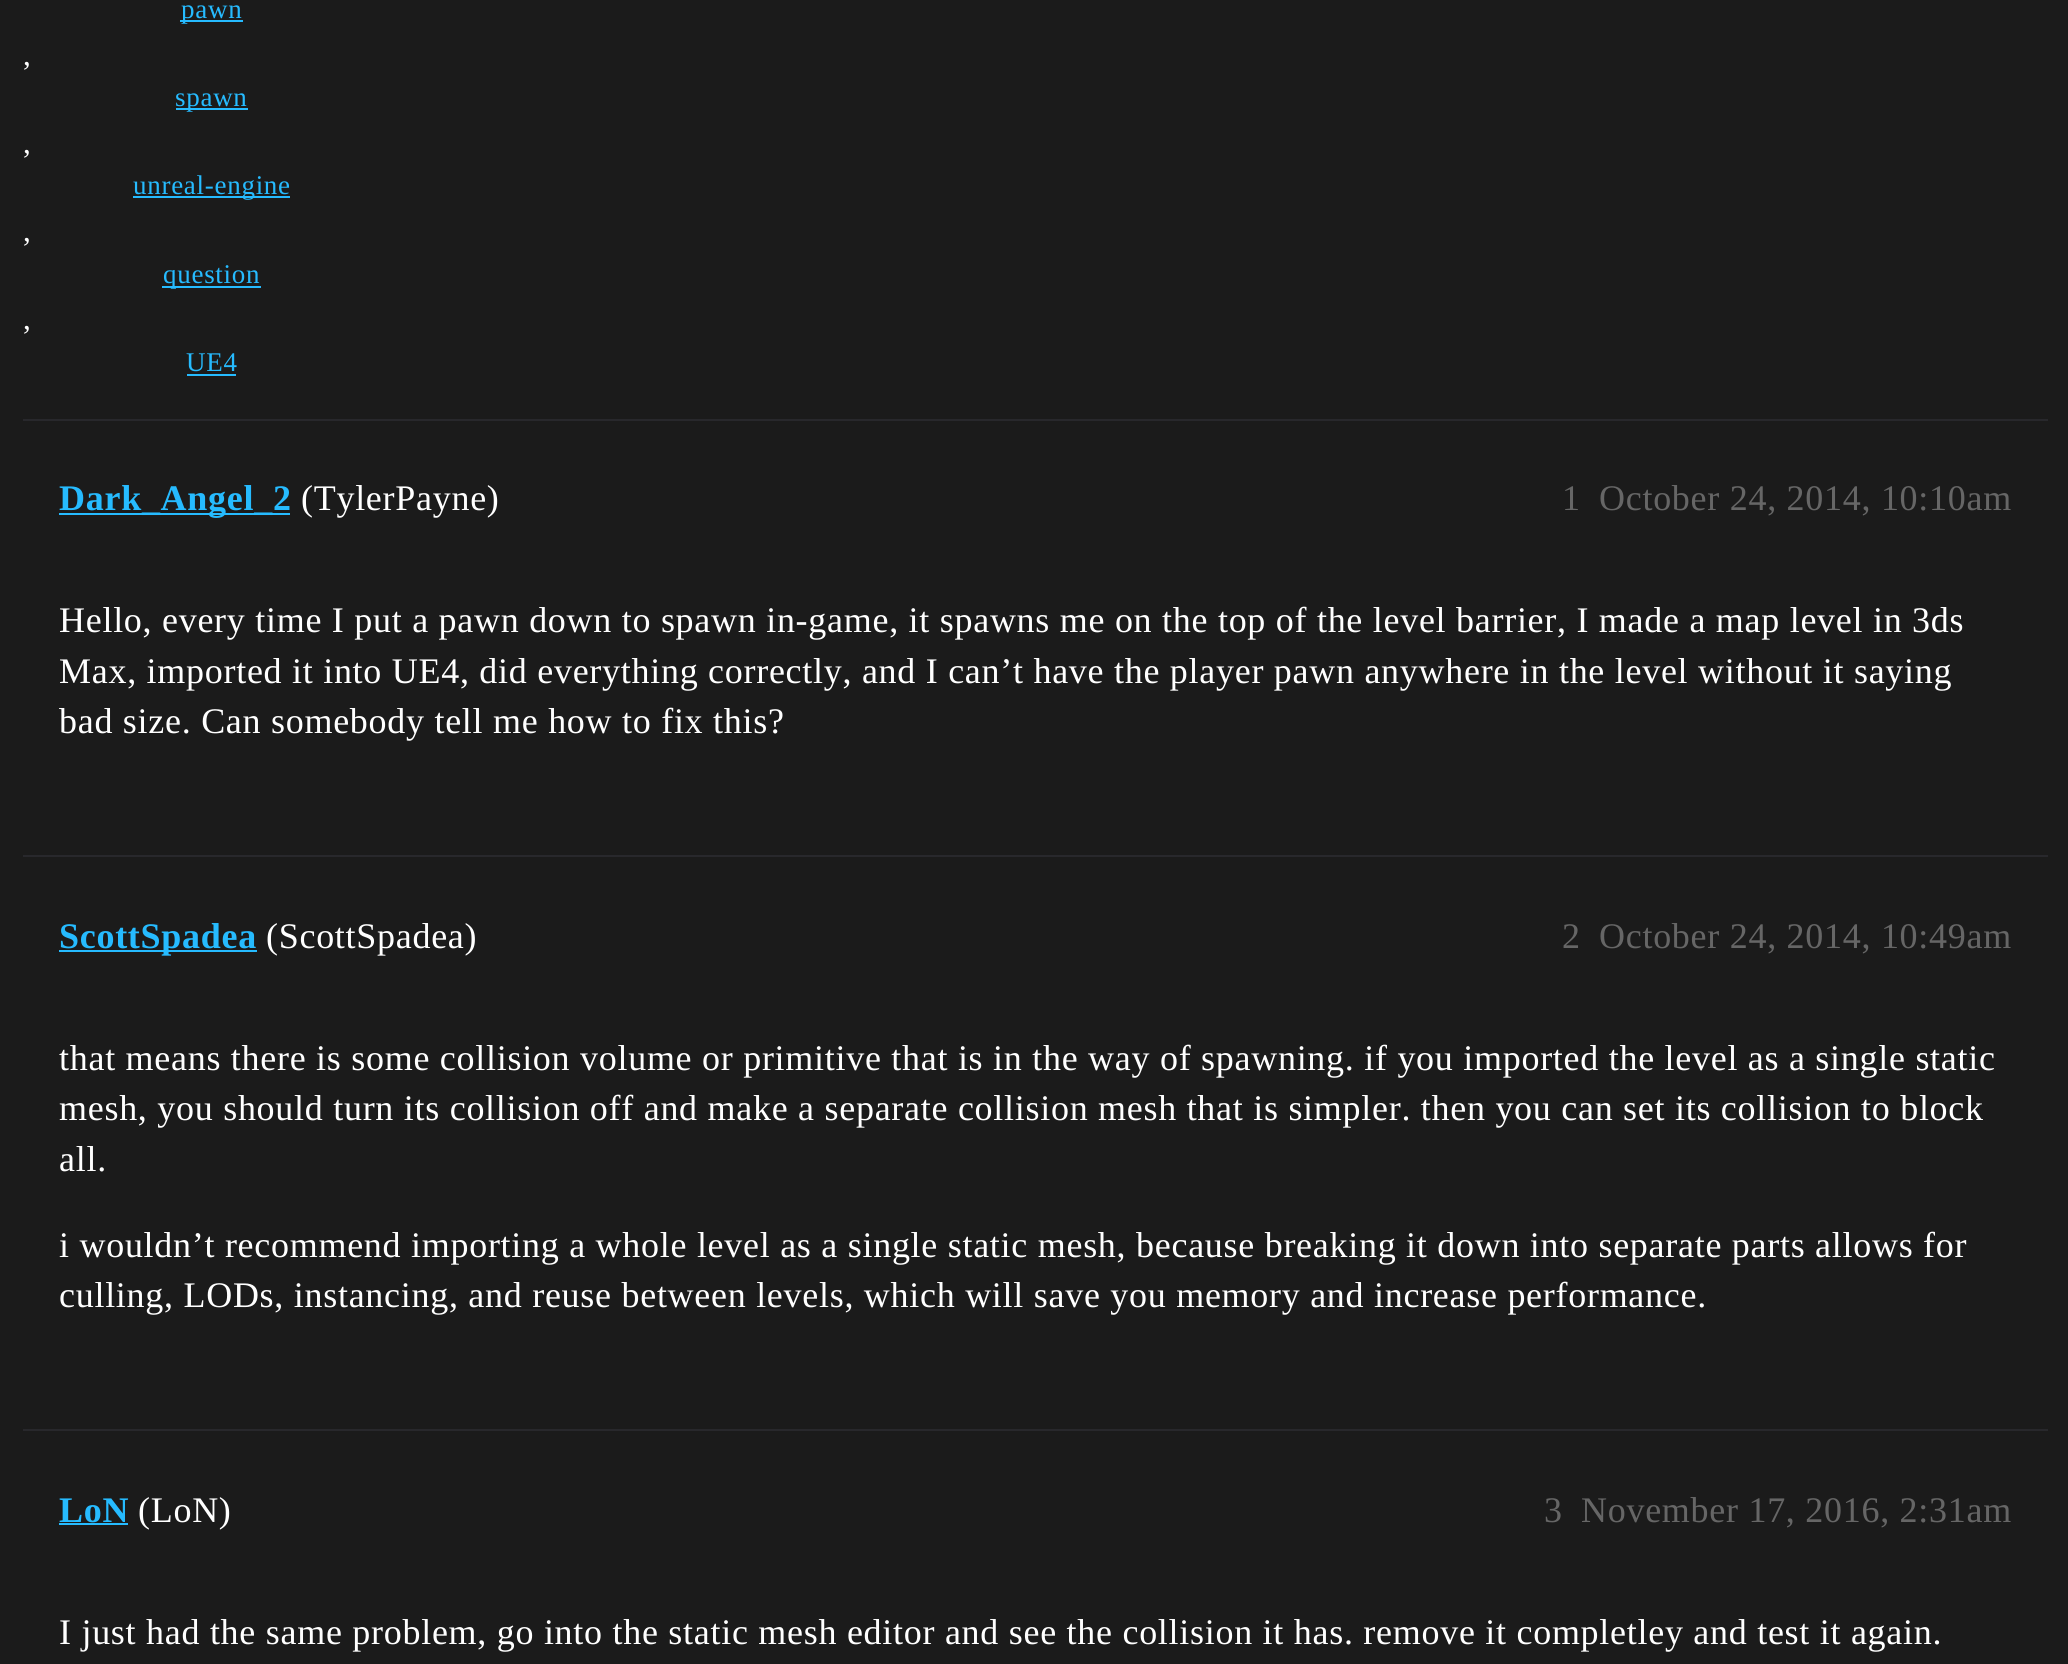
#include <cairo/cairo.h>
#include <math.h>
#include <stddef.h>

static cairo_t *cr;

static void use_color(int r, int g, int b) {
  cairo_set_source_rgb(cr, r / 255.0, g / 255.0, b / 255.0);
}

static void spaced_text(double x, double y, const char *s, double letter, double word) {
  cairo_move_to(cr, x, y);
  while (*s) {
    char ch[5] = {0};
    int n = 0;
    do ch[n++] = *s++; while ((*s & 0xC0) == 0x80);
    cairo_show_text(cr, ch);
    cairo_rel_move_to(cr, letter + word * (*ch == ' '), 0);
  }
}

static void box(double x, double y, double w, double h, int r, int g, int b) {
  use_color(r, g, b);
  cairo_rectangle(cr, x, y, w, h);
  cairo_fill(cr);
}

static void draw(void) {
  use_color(27, 27, 27);
  cairo_paint(cr);
  box(180, 20, 63, 2, 38, 187, 255);
  box(176, 108, 72, 2, 38, 187, 255);
  box(133, 196, 157, 2, 38, 187, 255);
  box(162, 286, 99, 2, 38, 187, 255);
  box(187, 374, 49, 2, 38, 187, 255);
  box(23, 419, 2025, 2, 40, 40, 44);
  box(59, 513, 231, 2, 38, 187, 255);
  box(23, 855, 2025, 2, 40, 40, 44);
  box(59, 950, 198, 2, 38, 187, 255);
  box(23, 1429, 2025, 2, 40, 40, 44);
  box(59, 1523, 69, 2, 38, 187, 255);
  cairo_select_font_face(cr, "Liberation Serif", CAIRO_FONT_SLANT_NORMAL, CAIRO_FONT_WEIGHT_NORMAL);
  cairo_set_font_size(cr, 27);
  spaced_text(181, 18, "pawn", 0.72, 0);
  cairo_set_font_size(cr, 31);
  use_color(255, 255, 255);
  spaced_text(23, 65, ",", 0.72, 0);
  cairo_set_font_size(cr, 27);
  use_color(38, 187, 255);
  spaced_text(175, 106, "spawn", 0.72, 0);
  cairo_set_font_size(cr, 31);
  use_color(255, 255, 255);
  spaced_text(23, 153, ",", 0.72, 0);
  cairo_set_font_size(cr, 27);
  use_color(38, 187, 255);
  spaced_text(133, 194, "unreal-engine", 0.72, 0);
  cairo_set_font_size(cr, 31);
  use_color(255, 255, 255);
  spaced_text(23, 241, ",", 0.72, 0);
  cairo_set_font_size(cr, 27);
  use_color(38, 187, 255);
  spaced_text(163, 283, "question", 0.72, 0);
  cairo_set_font_size(cr, 31);
  use_color(255, 255, 255);
  spaced_text(23, 329, ",", 0.72, 0);
  cairo_set_font_size(cr, 27);
  use_color(38, 187, 255);
  spaced_text(186, 371, "UE4", 0.72, 0);
  cairo_select_font_face(cr, "Liberation Serif", CAIRO_FONT_SLANT_NORMAL, CAIRO_FONT_WEIGHT_BOLD);
  cairo_set_font_size(cr, 36);
  spaced_text(59, 510, "Dark_Angel_2", 0.72, 0);
  cairo_select_font_face(cr, "Liberation Serif", CAIRO_FONT_SLANT_NORMAL, CAIRO_FONT_WEIGHT_NORMAL);
  use_color(255, 255, 255);
  spaced_text(301, 510, "(TylerPayne)", 0.72, 0);
  use_color(102, 102, 102);
  spaced_text(1562, 510, "1", 0.72, 0);
  spaced_text(1599, 510, "October 24, 2014, 10:10am", 0.72, 0);
  use_color(255, 255, 255);
  spaced_text(59, 632, "Hello, every time I put a pawn down to spawn in-game, it spawns me on the top of the level barrier, I made a map level in 3ds", 0.72, 0);
  spaced_text(59, 683, "Max, imported it into UE4, did everything correctly, and I can’t have the player pawn anywhere in the level without it saying", 0.72, 0);
  spaced_text(59, 733, "bad size. Can somebody tell me how to fix this?", 0.72, 0);
  cairo_select_font_face(cr, "Liberation Serif", CAIRO_FONT_SLANT_NORMAL, CAIRO_FONT_WEIGHT_BOLD);
  use_color(38, 187, 255);
  spaced_text(59, 948, "ScottSpadea", 0.72, 0);
  cairo_select_font_face(cr, "Liberation Serif", CAIRO_FONT_SLANT_NORMAL, CAIRO_FONT_WEIGHT_NORMAL);
  use_color(255, 255, 255);
  spaced_text(266, 948, "(ScottSpadea)", 0.72, 0);
  use_color(102, 102, 102);
  spaced_text(1562, 948, "2", 0.72, 0);
  spaced_text(1599, 948, "October 24, 2014, 10:49am", 0.72, 0);
  use_color(255, 255, 255);
  spaced_text(59, 1070, "that means there is some collision volume or primitive that is in the way of spawning. if you imported the level as a single static", 0.72, 0);
  spaced_text(59, 1120, "mesh, you should turn its collision off and make a separate collision mesh that is simpler. then you can set its collision to block", 0.72, 0);
  spaced_text(59, 1171, "all.", 0.72, 0);
  spaced_text(59, 1257, "i wouldn’t recommend importing a whole level as a single static mesh, because breaking it down into separate parts allows for", 0.72, 0);
  spaced_text(59, 1307, "culling, LODs, instancing, and reuse between levels, which will save you memory and increase performance.", 0.72, 0);
  cairo_select_font_face(cr, "Liberation Serif", CAIRO_FONT_SLANT_NORMAL, CAIRO_FONT_WEIGHT_BOLD);
  use_color(38, 187, 255);
  spaced_text(59, 1522, "LoN", 0.72, 0);
  cairo_select_font_face(cr, "Liberation Serif", CAIRO_FONT_SLANT_NORMAL, CAIRO_FONT_WEIGHT_NORMAL);
  use_color(255, 255, 255);
  spaced_text(138, 1522, "(LoN)", 0.72, 0);
  use_color(102, 102, 102);
  spaced_text(1544, 1522, "3", 0.72, 0);
  spaced_text(1581, 1522, "November 17, 2016, 2:31am", 0.72, 0);
  use_color(255, 255, 255);
  spaced_text(59, 1644, "I just had the same problem, go into the static mesh editor and see the collision it has. remove it completley and test it again.", 0.72, 0);
}

int main(void) {
  cairo_surface_t *surface = cairo_image_surface_create(CAIRO_FORMAT_RGB24, 2068, 1664);
  cr = cairo_create(surface);
  cairo_font_options_t *options = cairo_font_options_create();
  cairo_font_options_set_hint_metrics(options, CAIRO_HINT_METRICS_OFF);
  cairo_font_options_set_hint_style(options, CAIRO_HINT_STYLE_NONE);
  cairo_set_font_options(cr, options);
  cairo_set_miter_limit(cr, 4);
  draw();
  cairo_surface_write_to_png(surface, "out.png");
  cairo_font_options_destroy(options);
  cairo_destroy(cr);
  cairo_surface_destroy(surface);
  return 0;
}
